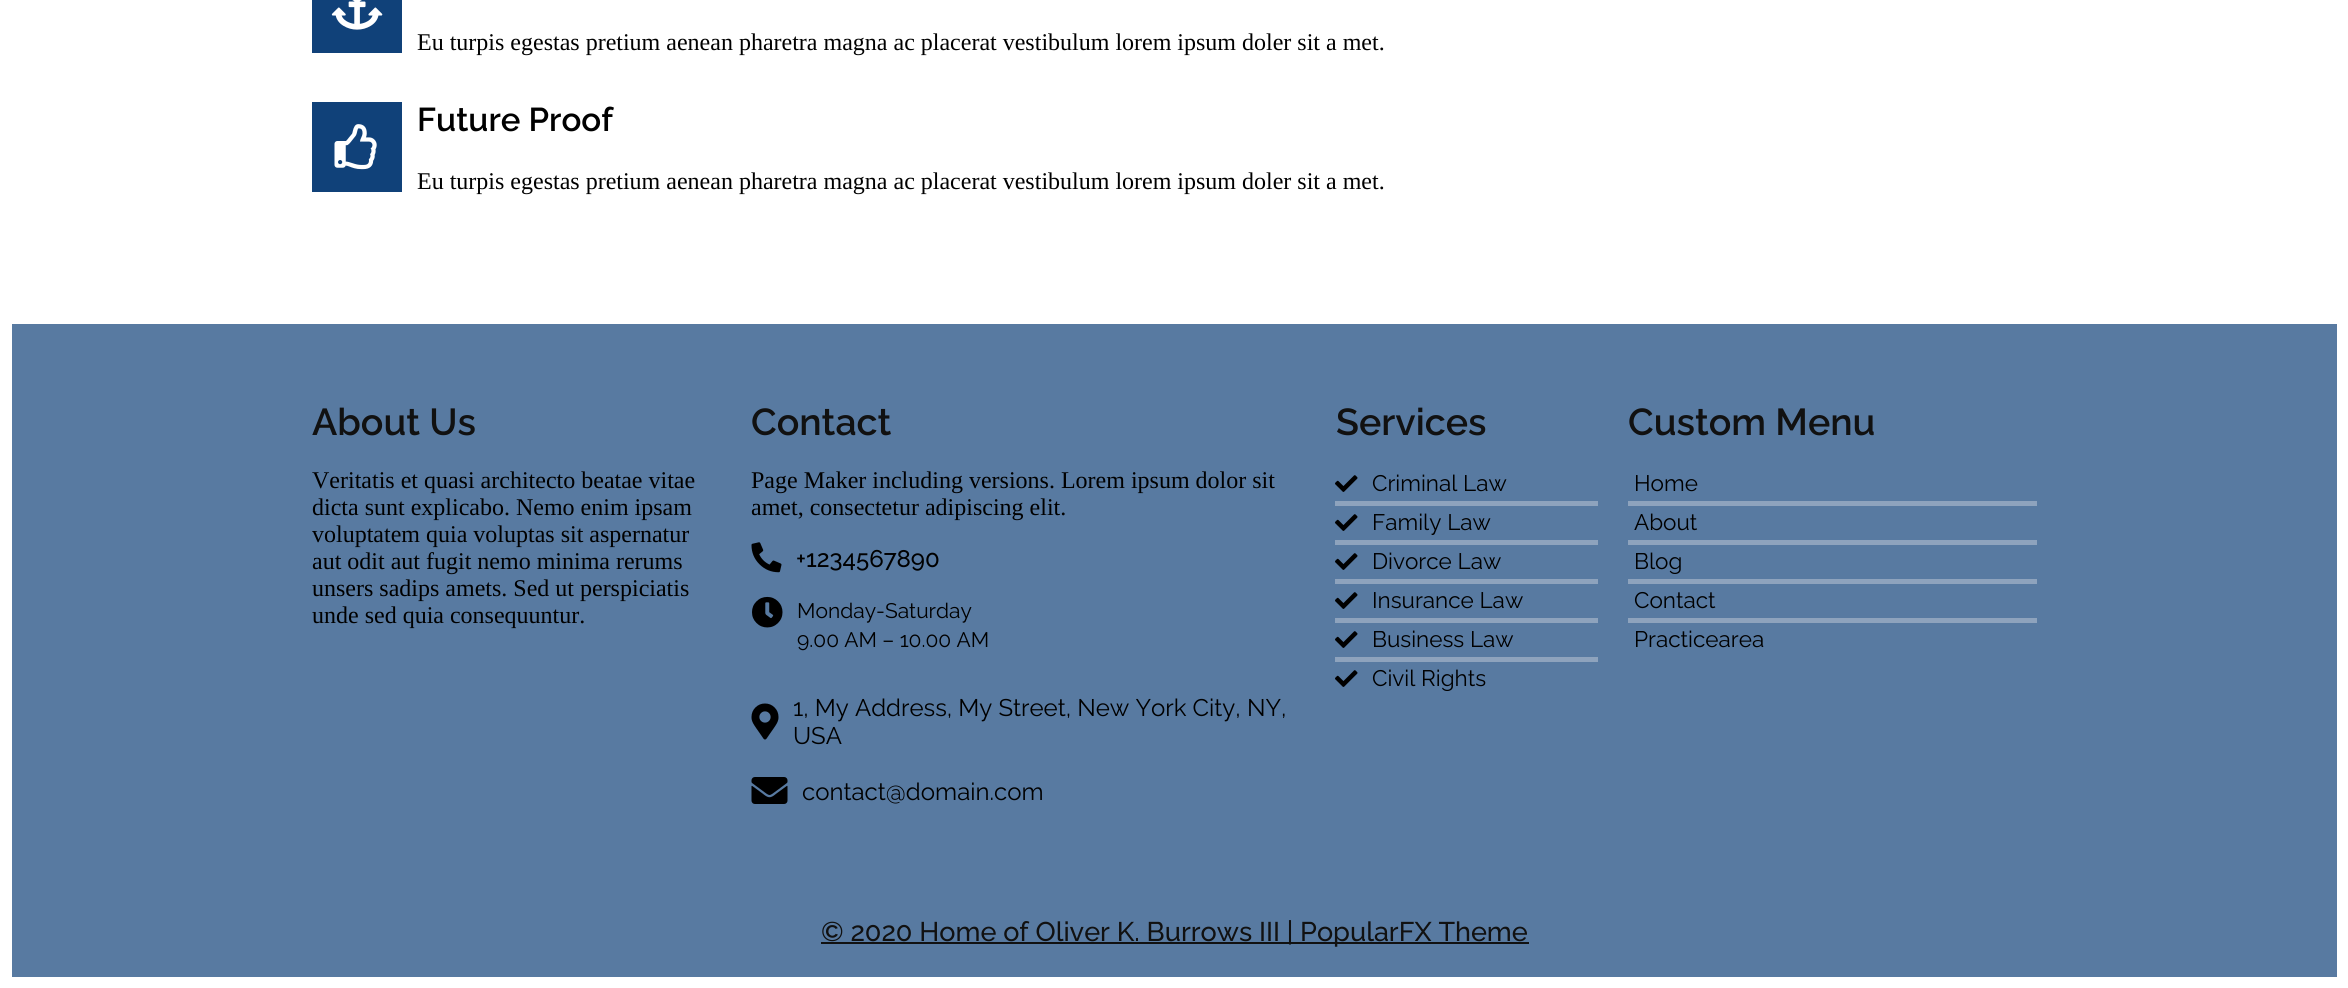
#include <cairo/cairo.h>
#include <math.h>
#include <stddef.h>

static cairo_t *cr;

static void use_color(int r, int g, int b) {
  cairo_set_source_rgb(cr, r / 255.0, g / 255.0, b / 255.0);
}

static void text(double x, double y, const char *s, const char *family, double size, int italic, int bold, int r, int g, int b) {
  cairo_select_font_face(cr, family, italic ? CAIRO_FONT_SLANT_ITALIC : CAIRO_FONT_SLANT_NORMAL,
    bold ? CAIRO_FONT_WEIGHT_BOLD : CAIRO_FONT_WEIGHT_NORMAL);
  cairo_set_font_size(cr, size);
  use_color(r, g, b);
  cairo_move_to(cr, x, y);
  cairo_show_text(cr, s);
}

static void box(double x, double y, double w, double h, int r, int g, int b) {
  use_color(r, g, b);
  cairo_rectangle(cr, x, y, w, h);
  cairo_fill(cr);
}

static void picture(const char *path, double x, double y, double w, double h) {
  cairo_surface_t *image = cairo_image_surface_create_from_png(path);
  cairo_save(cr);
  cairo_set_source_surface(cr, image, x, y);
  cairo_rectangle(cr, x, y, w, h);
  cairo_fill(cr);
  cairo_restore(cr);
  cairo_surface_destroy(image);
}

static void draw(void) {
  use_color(255, 255, 255);
  cairo_paint(cr);
  box(312, 0, 90, 53, 16, 65, 121);
  picture("img_01.png", 331, 0, 52, 30);
  box(312, 102, 90, 90, 16, 65, 121);
  picture("img_02.png", 334, 124, 43, 46);
  box(12, 324, 2325, 653, 88, 122, 161);
  picture("img_03.png", 751, 542, 31, 31);
  picture("img_04.png", 752, 596, 31, 32);
  picture("img_05.png", 751, 703, 28, 37);
  picture("img_06.png", 751, 777, 37, 27);
  box(1335, 501, 263, 5, 142, 163, 189);
  picture("img_07.png", 1335, 475, 23, 17);
  box(1335, 540, 263, 5, 142, 163, 189);
  picture("img_07.png", 1335, 514, 23, 17);
  box(1335, 579, 263, 5, 142, 163, 189);
  picture("img_07.png", 1335, 553, 23, 17);
  box(1335, 618, 263, 5, 142, 163, 189);
  picture("img_07.png", 1335, 592, 23, 17);
  box(1335, 657, 263, 5, 142, 163, 189);
  picture("img_07.png", 1335, 631, 23, 17);
  picture("img_07.png", 1335, 670, 23, 17);
  box(1628, 501, 409, 5, 142, 163, 189);
  box(1628, 540, 409, 5, 142, 163, 189);
  box(1628, 579, 409, 5, 142, 163, 189);
  box(1628, 618, 409, 5, 142, 163, 189);
  box(821, 942, 708, 2, 17, 17, 17);
  text(417, 50, "Eu turpis egestas pretium aenean pharetra magna ac placerat vestibulum lorem ipsum doler sit a met.", "Liberation Serif", 24, 0, 0, 0, 0, 0);
  text(417, 131, "Future Proof", "Raleway SemiBold", 33, 0, 0, 0, 0, 0);
  text(417, 189, "Eu turpis egestas pretium aenean pharetra magna ac placerat vestibulum lorem ipsum doler sit a met.", "Liberation Serif", 24, 0, 0, 0, 0, 0);
  text(312, 435, "About Us", "Raleway SemiBold", 37.5, 0, 0, 17, 17, 17);
  text(312, 488, "Veritatis et quasi architecto beatae vitae", "Liberation Serif", 24, 0, 0, 0, 0, 0);
  text(312, 515, "dicta sunt explicabo. Nemo enim ipsam", "Liberation Serif", 24, 0, 0, 0, 0, 0);
  text(312, 542, "voluptatem quia voluptas sit aspernatur", "Liberation Serif", 24, 0, 0, 0, 0, 0);
  text(312, 569, "aut odit aut fugit nemo minima rerums", "Liberation Serif", 24, 0, 0, 0, 0, 0);
  text(312, 596, "unsers sadips amets. Sed ut perspiciatis", "Liberation Serif", 24, 0, 0, 0, 0, 0);
  text(312, 623, "unde sed quia consequuntur.", "Liberation Serif", 24, 0, 0, 0, 0, 0);
  text(751, 435, "Contact", "Raleway SemiBold", 37.5, 0, 0, 17, 17, 17);
  text(751, 488, "Page Maker including versions. Lorem ipsum dolor sit", "Liberation Serif", 24, 0, 0, 0, 0, 0);
  text(751, 515, "amet, consectetur adipiscing elit.", "Liberation Serif", 24, 0, 0, 0, 0, 0);
  text(796, 567, "+1234567890", "Raleway Medium", 24, 0, 0, 0, 0, 0);
  text(797, 618, "Monday-Saturday", "Raleway", 21, 0, 0, 0, 0, 0);
  text(797, 647, "9.00 AM – 10.00 AM", "Raleway", 21, 0, 0, 0, 0, 0);
  text(793, 716, "1, My Address, My Street, New York City, NY,", "Raleway", 24, 0, 0, 0, 0, 0);
  text(793, 744, "USA", "Raleway", 24, 0, 0, 0, 0, 0);
  text(802, 800, "contact@domain.com", "Raleway", 24, 0, 0, 0, 0, 0);
  text(1336, 435, "Services", "Raleway SemiBold", 37.5, 0, 0, 17, 17, 17);
  text(1372, 491, "Criminal Law", "Raleway", 22.5, 0, 0, 0, 0, 0);
  text(1372, 530, "Family Law", "Raleway", 22.5, 0, 0, 0, 0, 0);
  text(1372, 569, "Divorce Law", "Raleway", 22.5, 0, 0, 0, 0, 0);
  text(1372, 608, "Insurance Law", "Raleway", 22.5, 0, 0, 0, 0, 0);
  text(1372, 647, "Business Law", "Raleway", 22.5, 0, 0, 0, 0, 0);
  text(1372, 686, "Civil Rights", "Raleway", 22.5, 0, 0, 0, 0, 0);
  text(1628, 435, "Custom Menu", "Raleway SemiBold", 37.5, 0, 0, 17, 17, 17);
  text(1634, 491, "Home", "Raleway", 22.5, 0, 0, 0, 0, 0);
  text(1634, 530, "About", "Raleway", 22.5, 0, 0, 0, 0, 0);
  text(1634, 569, "Blog", "Raleway", 22.5, 0, 0, 0, 0, 0);
  text(1634, 608, "Contact", "Raleway", 22.5, 0, 0, 0, 0, 0);
  text(1634, 647, "Practicearea", "Raleway", 22.5, 0, 0, 0, 0, 0);
  text(821, 941, "© 2020 Home of Oliver K. Burrows III | PopularFX Theme", "Raleway Medium", 27, 0, 0, 17, 17, 17);
}

int main(void) {
  cairo_surface_t *surface = cairo_image_surface_create(CAIRO_FORMAT_RGB24, 2348, 988);
  cr = cairo_create(surface);
  cairo_font_options_t *options = cairo_font_options_create();
  cairo_font_options_set_hint_metrics(options, CAIRO_HINT_METRICS_OFF);
  cairo_font_options_set_hint_style(options, CAIRO_HINT_STYLE_NONE);
  cairo_set_font_options(cr, options);
  cairo_set_miter_limit(cr, 4);
  draw();
  cairo_surface_write_to_png(surface, "out.png");
  cairo_font_options_destroy(options);
  cairo_destroy(cr);
  cairo_surface_destroy(surface);
  return 0;
}
